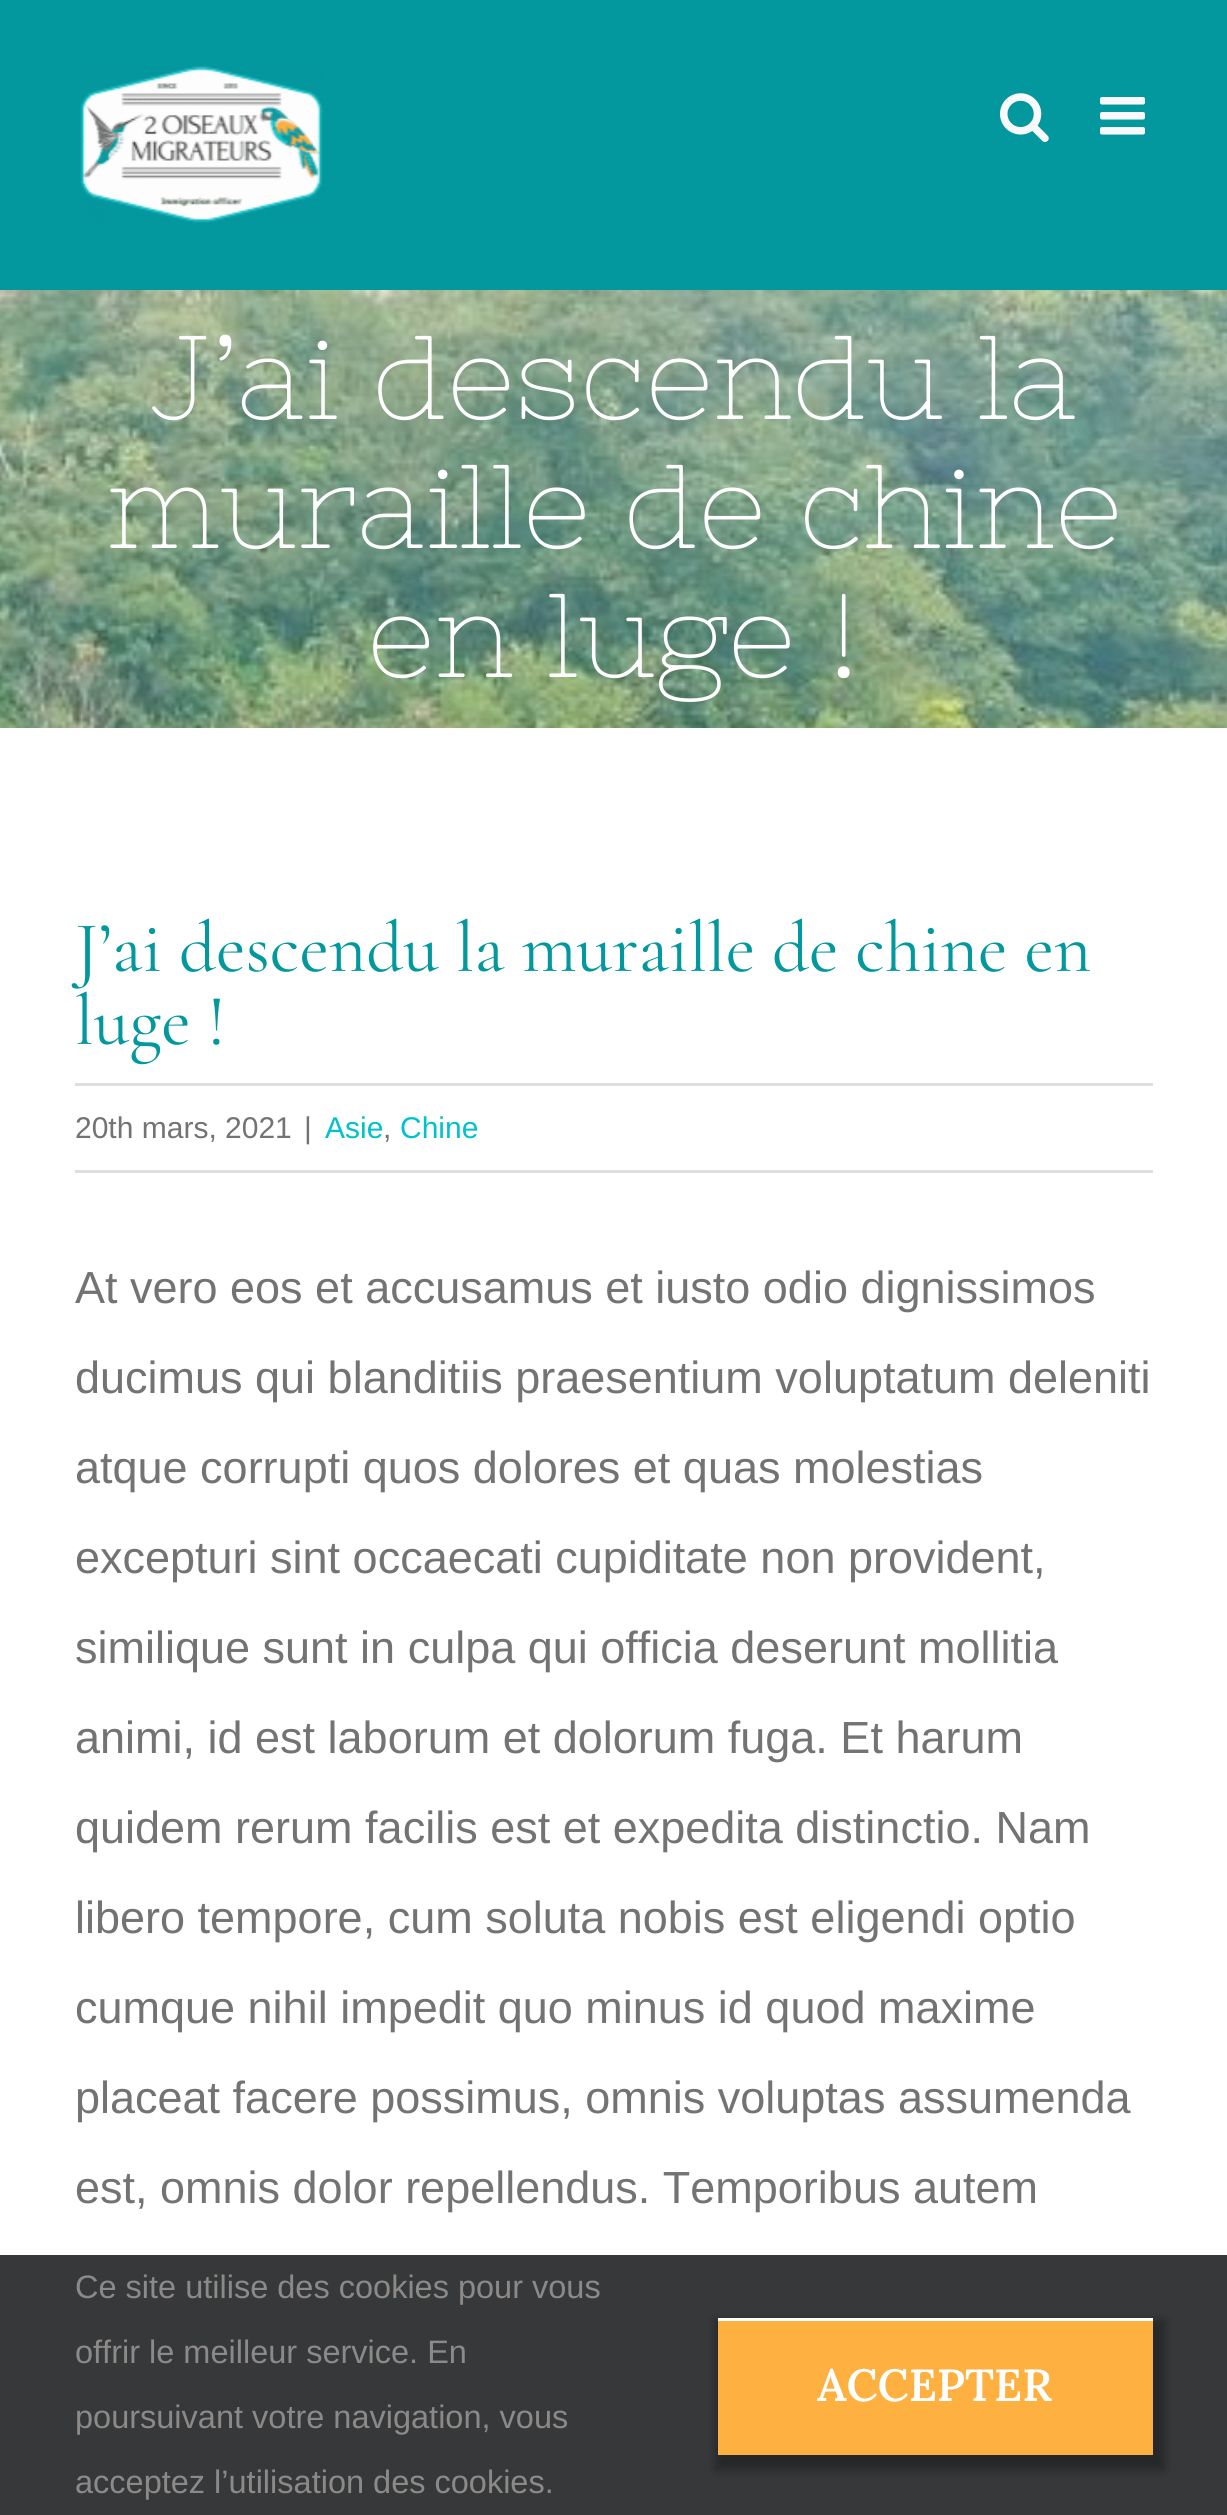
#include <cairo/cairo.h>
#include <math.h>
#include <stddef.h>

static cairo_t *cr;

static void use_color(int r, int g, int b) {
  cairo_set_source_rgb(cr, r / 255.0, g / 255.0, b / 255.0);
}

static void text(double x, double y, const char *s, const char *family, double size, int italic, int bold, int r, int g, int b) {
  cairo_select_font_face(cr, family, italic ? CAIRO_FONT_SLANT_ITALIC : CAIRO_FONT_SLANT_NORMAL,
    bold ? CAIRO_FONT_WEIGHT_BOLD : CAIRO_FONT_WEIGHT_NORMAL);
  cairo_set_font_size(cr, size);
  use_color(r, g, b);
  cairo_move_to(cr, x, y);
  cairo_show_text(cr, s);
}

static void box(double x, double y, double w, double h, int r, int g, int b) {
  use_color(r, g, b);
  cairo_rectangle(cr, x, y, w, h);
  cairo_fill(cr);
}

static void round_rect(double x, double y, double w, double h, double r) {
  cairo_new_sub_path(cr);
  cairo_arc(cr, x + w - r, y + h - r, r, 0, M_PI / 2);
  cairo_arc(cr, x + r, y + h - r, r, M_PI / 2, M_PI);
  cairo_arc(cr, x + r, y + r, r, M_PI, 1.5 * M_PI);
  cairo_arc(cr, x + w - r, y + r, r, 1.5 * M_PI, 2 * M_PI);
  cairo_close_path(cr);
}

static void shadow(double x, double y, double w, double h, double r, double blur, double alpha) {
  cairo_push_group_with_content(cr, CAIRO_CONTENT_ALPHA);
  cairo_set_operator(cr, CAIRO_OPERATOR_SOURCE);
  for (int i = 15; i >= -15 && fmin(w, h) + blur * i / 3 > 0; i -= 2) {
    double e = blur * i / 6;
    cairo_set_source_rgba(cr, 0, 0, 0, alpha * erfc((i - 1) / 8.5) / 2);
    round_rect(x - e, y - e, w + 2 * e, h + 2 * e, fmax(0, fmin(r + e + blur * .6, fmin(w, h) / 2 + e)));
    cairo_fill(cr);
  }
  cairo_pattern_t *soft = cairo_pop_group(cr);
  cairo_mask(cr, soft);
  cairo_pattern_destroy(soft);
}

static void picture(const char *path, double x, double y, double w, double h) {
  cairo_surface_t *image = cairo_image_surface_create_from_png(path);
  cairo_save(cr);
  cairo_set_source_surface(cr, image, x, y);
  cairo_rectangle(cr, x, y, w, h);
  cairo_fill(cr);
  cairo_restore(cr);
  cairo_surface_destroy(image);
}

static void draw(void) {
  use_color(255, 255, 255);
  cairo_paint(cr);
  box(0, 0, 1227, 290, 3, 152, 158);
  picture("img_01.png", 80, 66, 244, 157);
  picture("img_02.png", 1000, 93, 49, 49);
  picture("img_03.png", 1100, 97, 45, 38);
  picture("img_04.png", 0, 290, 1227, 438);
  box(75, 1083, 1078, 3, 224, 222, 222);
  box(75, 1170, 1078, 3, 224, 222, 222);
  box(0, 2255, 1227, 260, 54, 56, 57);
  use_color(0, 0, 0);
  shadow(715, 2320, 450, 150, 0, 4.5, 0.3);
  box(718, 2321, 435, 134, 254, 176, 64);
  box(718, 2318, 435, 3, 255, 255, 255);
  text(150, 419, "J’ai descendu la", "Nixie One", 118.75, 0, 0, 255, 255, 255);
  text(106, 548, "muraille de chine", "Nixie One", 118.75, 0, 0, 255, 255, 255);
  text(367, 677, "en luge !", "Nixie One", 118.75, 0, 0, 255, 255, 255);
  text(75, 971, "J’ai descendu la muraille de chine en", "Cormorant Garamond", 72.2, 0, 0, 3, 152, 158);
  text(75, 1044, "luge !", "Cormorant Garamond", 72.2, 0, 0, 3, 152, 158);
  text(75, 1138, "20th mars, 2021", "Liberation Sans", 30, 0, 0, 115, 115, 115);
  text(304, 1138, "|", "Liberation Sans", 30, 0, 0, 115, 115, 115);
  text(325, 1138, "Asie", "Liberation Sans", 30, 0, 0, 0, 194, 203);
  text(383, 1138, ",", "Liberation Sans", 30, 0, 0, 115, 115, 115);
  text(400, 1138, "Chine", "Liberation Sans", 30, 0, 0, 0, 194, 203);
  text(75, 1303, "At vero eos et accusamus et iusto odio dignissimos", "Liberation Sans", 45, 0, 0, 115, 115, 115);
  text(75, 1393, "ducimus qui blanditiis praesentium voluptatum deleniti", "Liberation Sans", 45, 0, 0, 115, 115, 115);
  text(75, 1483, "atque corrupti quos dolores et quas molestias", "Liberation Sans", 45, 0, 0, 115, 115, 115);
  text(75, 1573, "excepturi sint occaecati cupiditate non provident,", "Liberation Sans", 45, 0, 0, 115, 115, 115);
  text(75, 1663, "similique sunt in culpa qui officia deserunt mollitia", "Liberation Sans", 45, 0, 0, 115, 115, 115);
  text(75, 1753, "animi, id est laborum et dolorum fuga. Et harum", "Liberation Sans", 45, 0, 0, 115, 115, 115);
  text(75, 1843, "quidem rerum facilis est et expedita distinctio. Nam", "Liberation Sans", 45, 0, 0, 115, 115, 115);
  text(75, 1933, "libero tempore, cum soluta nobis est eligendi optio", "Liberation Sans", 45, 0, 0, 115, 115, 115);
  text(75, 2023, "cumque nihil impedit quo minus id quod maxime", "Liberation Sans", 45, 0, 0, 115, 115, 115);
  text(75, 2113, "placeat facere possimus, omnis voluptas assumenda", "Liberation Sans", 45, 0, 0, 115, 115, 115);
  text(75, 2203, "est, omnis dolor repellendus. Temporibus autem", "Liberation Sans", 45, 0, 0, 115, 115, 115);
  text(75, 2298, "Ce site utilise des cookies pour vous", "Liberation Sans", 32.5, 0, 0, 140, 137, 137);
  text(75, 2363, "offrir le meilleur service. En", "Liberation Sans", 32.5, 0, 0, 140, 137, 137);
  text(75, 2428, "poursuivant votre navigation, vous", "Liberation Sans", 32.5, 0, 0, 140, 137, 137);
  text(75, 2493, "acceptez l’utilisation des cookies.", "Liberation Sans", 32.5, 0, 0, 140, 137, 137);
  text(817, 2401, "ACCEPTER", "Lora SemiBold", 45, 0, 0, 255, 255, 255);
}

int main(void) {
  cairo_surface_t *surface = cairo_image_surface_create(CAIRO_FORMAT_RGB24, 1227, 2515);
  cr = cairo_create(surface);
  cairo_font_options_t *options = cairo_font_options_create();
  cairo_font_options_set_hint_metrics(options, CAIRO_HINT_METRICS_OFF);
  cairo_font_options_set_hint_style(options, CAIRO_HINT_STYLE_NONE);
  cairo_set_font_options(cr, options);
  cairo_set_miter_limit(cr, 4);
  draw();
  cairo_surface_write_to_png(surface, "out.png");
  cairo_font_options_destroy(options);
  cairo_destroy(cr);
  cairo_surface_destroy(surface);
  return 0;
}
